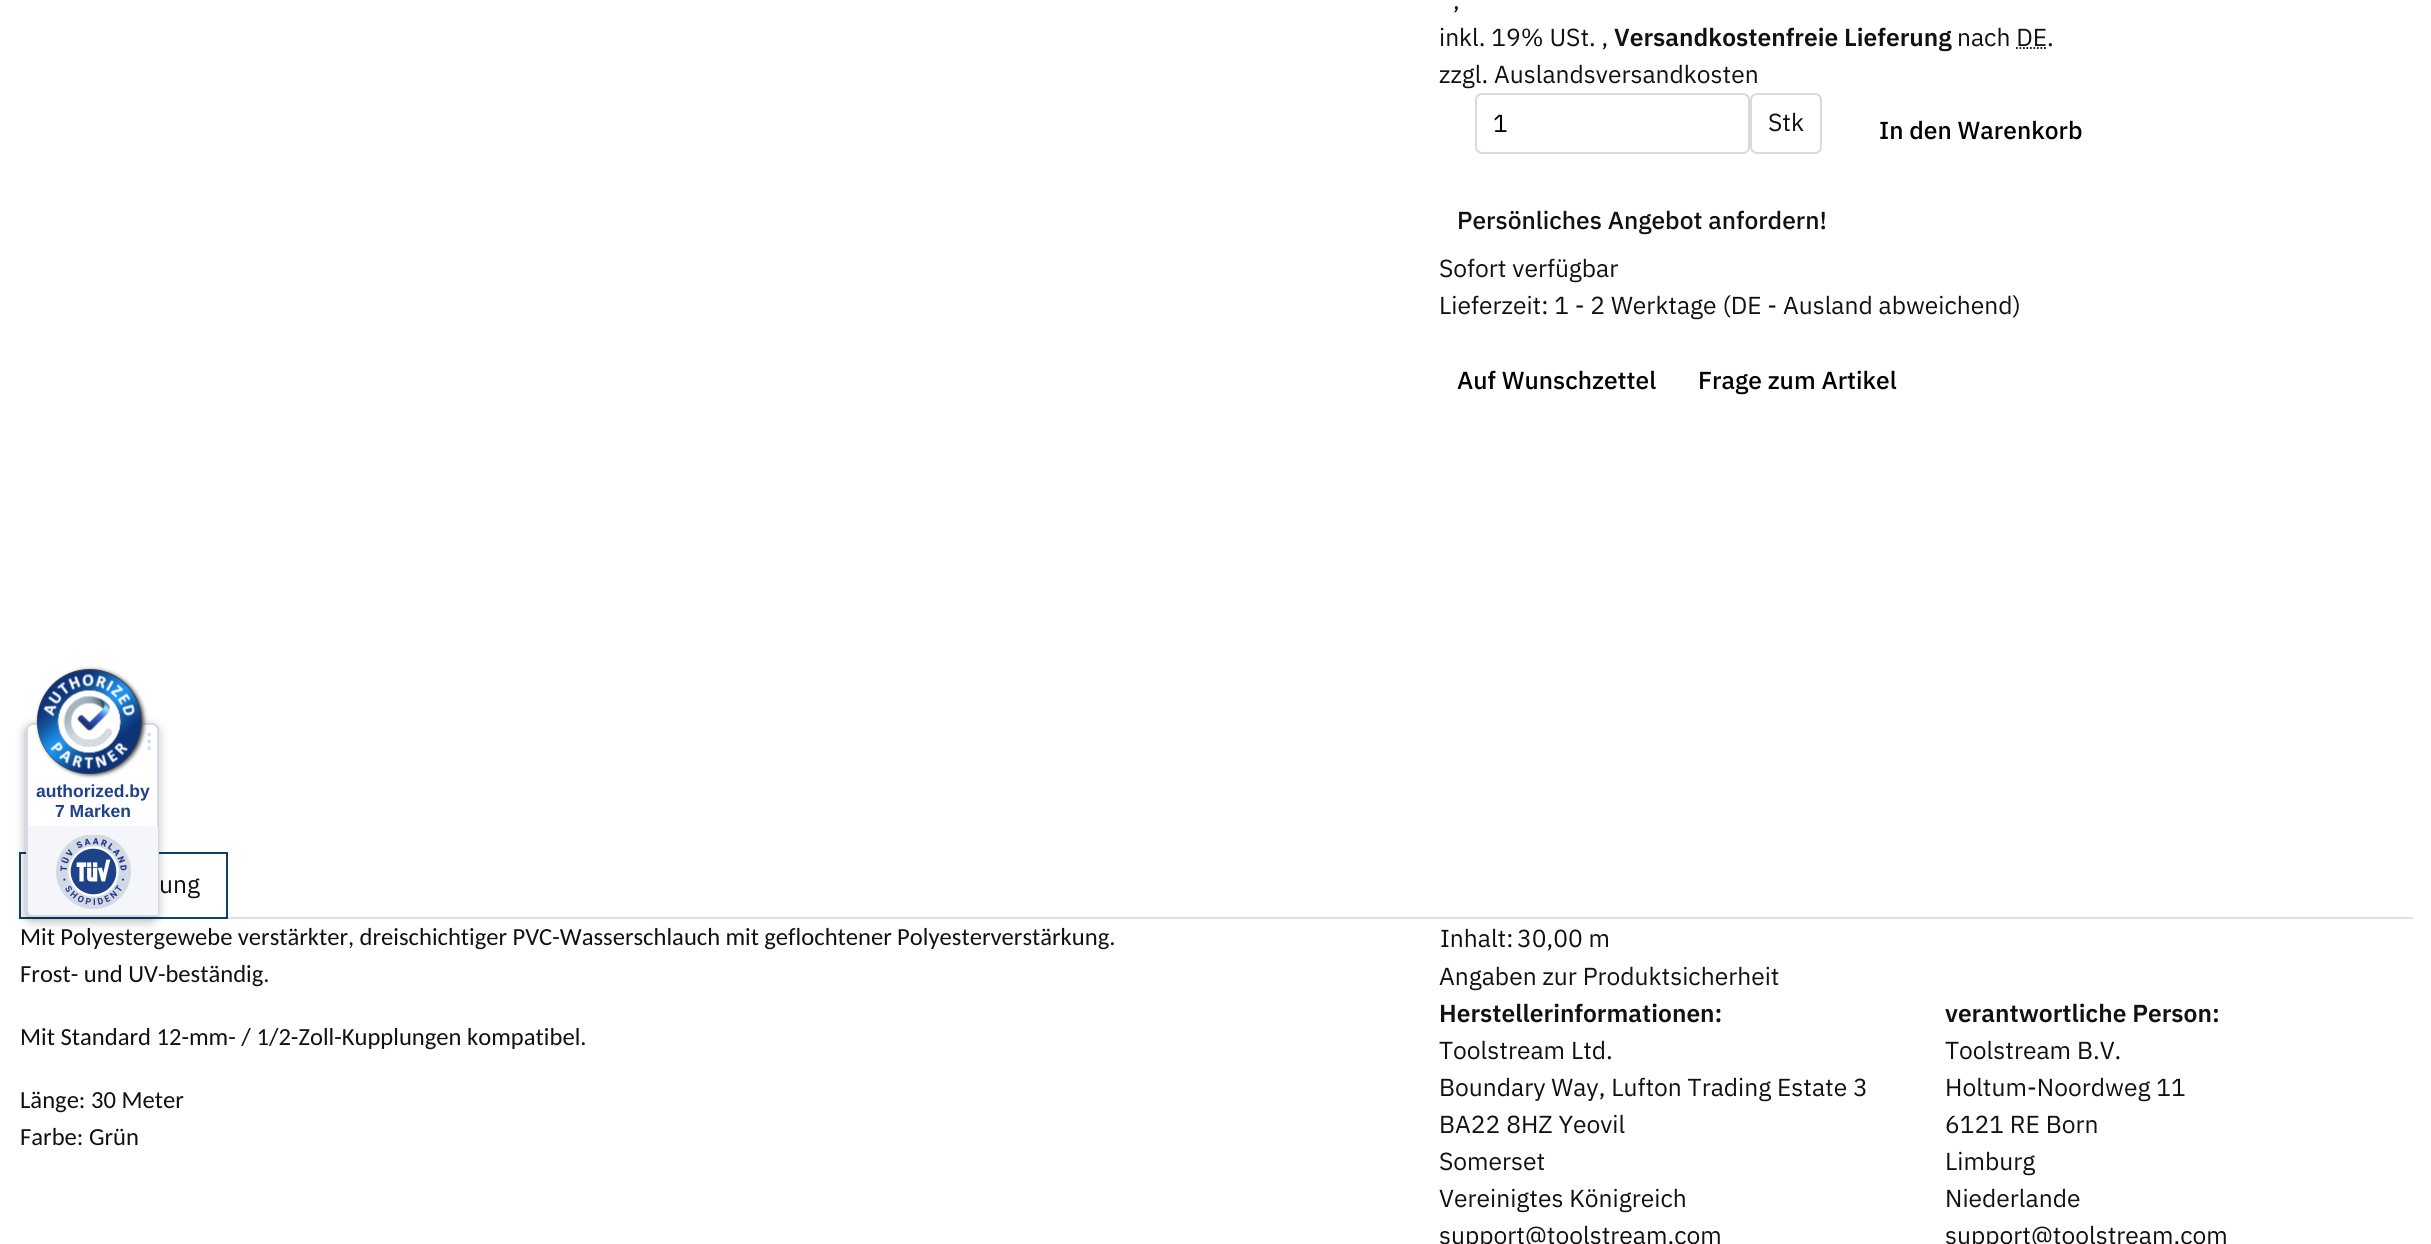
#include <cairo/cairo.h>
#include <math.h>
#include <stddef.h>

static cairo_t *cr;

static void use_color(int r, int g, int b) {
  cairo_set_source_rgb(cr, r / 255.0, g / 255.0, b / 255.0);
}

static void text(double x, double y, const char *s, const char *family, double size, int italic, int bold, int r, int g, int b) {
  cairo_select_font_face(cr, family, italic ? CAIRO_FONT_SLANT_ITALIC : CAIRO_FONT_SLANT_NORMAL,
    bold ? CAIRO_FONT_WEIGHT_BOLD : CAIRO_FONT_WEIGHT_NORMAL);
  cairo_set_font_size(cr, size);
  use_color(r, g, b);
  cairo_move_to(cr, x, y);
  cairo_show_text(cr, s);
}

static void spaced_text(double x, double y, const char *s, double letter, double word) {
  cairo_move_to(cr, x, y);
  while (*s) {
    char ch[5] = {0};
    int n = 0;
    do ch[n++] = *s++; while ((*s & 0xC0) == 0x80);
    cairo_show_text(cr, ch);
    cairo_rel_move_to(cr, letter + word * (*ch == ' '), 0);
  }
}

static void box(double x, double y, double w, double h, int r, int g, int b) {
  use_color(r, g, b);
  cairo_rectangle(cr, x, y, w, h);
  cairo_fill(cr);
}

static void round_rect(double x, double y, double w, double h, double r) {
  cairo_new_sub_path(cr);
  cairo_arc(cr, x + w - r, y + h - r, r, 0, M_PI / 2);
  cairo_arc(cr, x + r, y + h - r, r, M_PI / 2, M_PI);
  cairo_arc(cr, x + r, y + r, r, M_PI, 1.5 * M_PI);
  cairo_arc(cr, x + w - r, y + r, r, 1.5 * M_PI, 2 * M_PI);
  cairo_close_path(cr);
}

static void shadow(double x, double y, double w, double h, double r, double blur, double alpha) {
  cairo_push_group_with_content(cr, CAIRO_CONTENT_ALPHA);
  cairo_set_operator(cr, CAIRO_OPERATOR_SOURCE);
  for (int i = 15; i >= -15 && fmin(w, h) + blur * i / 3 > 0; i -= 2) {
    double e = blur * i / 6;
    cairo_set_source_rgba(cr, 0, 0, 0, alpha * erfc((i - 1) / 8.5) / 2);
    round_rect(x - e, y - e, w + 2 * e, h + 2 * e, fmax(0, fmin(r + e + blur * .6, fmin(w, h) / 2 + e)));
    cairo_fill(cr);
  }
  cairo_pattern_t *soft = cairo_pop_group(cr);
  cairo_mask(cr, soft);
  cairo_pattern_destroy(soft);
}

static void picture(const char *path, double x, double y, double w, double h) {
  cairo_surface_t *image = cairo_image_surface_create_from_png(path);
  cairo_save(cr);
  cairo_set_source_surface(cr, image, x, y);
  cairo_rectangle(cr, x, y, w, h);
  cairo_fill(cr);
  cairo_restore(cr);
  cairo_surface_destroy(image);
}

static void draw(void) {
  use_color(255, 255, 255);
  cairo_paint(cr);
  cairo_new_path(cr);
  cairo_move_to(cr, 2016, 48);
  cairo_line_to(cr, 2047, 48);
  use_color(17, 17, 17);
  cairo_set_line_width(cr, 1.8);
  cairo_set_dash(cr, (double[]){1.75, 1.75}, 2, 0);
  cairo_stroke(cr);
  round_rect(1476, 94, 273, 59, 6);
  use_color(218, 218, 218);
  cairo_set_line_width(cr, 2);
  cairo_set_dash(cr, NULL, 0, 0);
  cairo_stroke(cr);
  round_rect(1751, 94, 70, 59, 6);
  cairo_stroke(cr);
  box(228, 917, 2185, 2, 222, 226, 230);
  cairo_rectangle(cr, 20, 853, 207, 65);
  use_color(12, 66, 107);
  cairo_stroke(cr);
  use_color(0, 0, 0);
  shadow(25, 726, 133, 195, 7, 5, 0.3);
  use_color(255, 255, 255);
  round_rect(27, 724, 131, 192, 6);
  cairo_fill_preserve(cr);
  use_color(210, 217, 232);
  cairo_stroke(cr);
  use_color(0, 0, 0);
  shadow(39, 670, 105, 105, 52.5, 2, 0.7);
  use_color(68, 68, 68);
  cairo_arc(cr, 89.5, 721.5, 52.5, 0, 2 * M_PI);
  cairo_fill(cr);
  picture("img_01.png", 36, 669, 106, 105);
  picture("img_02.png", 147, 733, 4, 17);
  use_color(244, 246, 249);
  cairo_new_path(cr);
  cairo_move_to(cr, 28, 826);
  cairo_line_to(cr, 158, 826);
  cairo_line_to(cr, 158, 915);
  cairo_line_to(cr, 35, 915);
  cairo_curve_to(cr, 31, 915, 28, 912, 28, 908);
  cairo_close_path(cr);
  cairo_fill(cr);
  picture("img_03.png", 56, 835, 75, 74);
  text(1453, 9, ",", "IBM Plex Sans", 24.6, 0, 0, 17, 17, 17);
  text(1439, 46, "inkl. 19% USt. ,", "IBM Plex Sans", 24.6, 0, 0, 17, 17, 17);
  text(1614, 46, "Versandkostenfreie Lieferung", "IBM Plex Sans SemiBold", 24.6, 0, 0, 17, 17, 17);
  text(1957, 46, "nach DE.", "IBM Plex Sans", 24.6, 0, 0, 17, 17, 17);
  text(1439, 83, "zzgl. Auslandsversandkosten", "IBM Plex Sans", 24.6, 0, 0, 17, 17, 17);
  text(1493, 132, "1", "IBM Plex Sans", 24.6, 0, 0, 0, 0, 0);
  text(1768, 131, "Stk", "IBM Plex Sans", 24.6, 0, 0, 17, 17, 17);
  text(1879, 139, "In den Warenkorb", "IBM Plex Sans Medium", 24.6, 0, 0, 0, 0, 0);
  text(1457, 229, "Persönliches Angebot anfordern!", "IBM Plex Sans Medium", 24.6, 0, 0, 17, 17, 17);
  text(1439, 277, "Sofort verfügbar", "IBM Plex Sans", 24.6, 0, 0, 17, 17, 17);
  text(1439, 314, "Lieferzeit: 1 - 2 Werktage (DE - Ausland abweichend)", "IBM Plex Sans", 24.6, 0, 0, 17, 17, 17);
  text(1457, 389, "Auf Wunschzettel", "IBM Plex Sans Medium", 24.6, 0, 0, 0, 0, 0);
  text(1698, 389, "Frage zum Artikel", "IBM Plex Sans Medium", 24.6, 0, 0, 0, 0, 0);
  text(159, 893, "ung", "IBM Plex Sans", 24.6, 0, 0, 17, 17, 17);
  cairo_select_font_face(cr, "Carlito", CAIRO_FONT_SLANT_NORMAL, CAIRO_FONT_WEIGHT_NORMAL);
  spaced_text(20, 945, "Mit Polyestergewebe verstärkter, dreischichtiger PVC-Wasserschlauch mit geflochtener Polyesterverstärkung.", 0, -0.25);
  text(20, 982, "Frost- und UV-beständig.", "Carlito", 24.6, 0, 0, 17, 17, 17);
  text(20, 1045, "Mit Standard 12-mm- / 1/2-Zoll-Kupplungen kompatibel.", "Carlito", 24.6, 0, 0, 17, 17, 17);
  text(20, 1108, "Länge: 30 Meter", "Carlito", 24.6, 0, 0, 17, 17, 17);
  text(20, 1145, "Farbe: Grün", "Carlito", 24.6, 0, 0, 17, 17, 17);
  text(1440, 947, "Inhalt:", "IBM Plex Sans", 24.6, 0, 0, 17, 17, 17);
  text(1517, 947, "30,00 m", "IBM Plex Sans", 24.6, 0, 0, 17, 17, 17);
  text(1439, 985, "Angaben zur Produktsicherheit", "IBM Plex Sans", 24.6, 0, 0, 17, 17, 17);
  text(1439, 1022, "Herstellerinformationen:", "IBM Plex Sans SemiBold", 24.6, 0, 0, 17, 17, 17);
  text(1439, 1059, "Toolstream Ltd.", "IBM Plex Sans", 24.6, 0, 0, 17, 17, 17);
  text(1439, 1096, "Boundary Way, Lufton Trading Estate 3", "IBM Plex Sans", 24.6, 0, 0, 17, 17, 17);
  text(1439, 1133, "BA22 8HZ Yeovil", "IBM Plex Sans", 24.6, 0, 0, 17, 17, 17);
  text(1439, 1170, "Somerset", "IBM Plex Sans", 24.6, 0, 0, 17, 17, 17);
  text(1439, 1207, "Vereinigtes Königreich", "IBM Plex Sans", 24.6, 0, 0, 17, 17, 17);
  text(1439, 1244, "support@toolstream.com", "IBM Plex Sans", 24.6, 0, 0, 17, 17, 17);
  text(1945, 1022, "verantwortliche Person:", "IBM Plex Sans SemiBold", 24.6, 0, 0, 17, 17, 17);
  text(1945, 1059, "Toolstream B.V.", "IBM Plex Sans", 24.6, 0, 0, 17, 17, 17);
  text(1945, 1096, "Holtum-Noordweg 11", "IBM Plex Sans", 24.6, 0, 0, 17, 17, 17);
  text(1945, 1133, "6121 RE Born", "IBM Plex Sans", 24.6, 0, 0, 17, 17, 17);
  text(1945, 1170, "Limburg", "IBM Plex Sans", 24.6, 0, 0, 17, 17, 17);
  text(1945, 1207, "Niederlande", "IBM Plex Sans", 24.6, 0, 0, 17, 17, 17);
  text(1945, 1244, "support@toolstream.com", "IBM Plex Sans", 24.6, 0, 0, 17, 17, 17);
  text(36, 797, "authorized.by", "Liberation Sans", 17.5, 0, 1, 29, 66, 138);
  text(55, 817, "7 Marken", "Liberation Sans", 17.5, 0, 1, 29, 66, 138);
}

int main(void) {
  cairo_surface_t *surface = cairo_image_surface_create(CAIRO_FORMAT_RGB24, 2431, 1244);
  cr = cairo_create(surface);
  cairo_font_options_t *options = cairo_font_options_create();
  cairo_font_options_set_hint_metrics(options, CAIRO_HINT_METRICS_OFF);
  cairo_font_options_set_hint_style(options, CAIRO_HINT_STYLE_NONE);
  cairo_set_font_options(cr, options);
  cairo_set_miter_limit(cr, 4);
  draw();
  cairo_surface_write_to_png(surface, "out.png");
  cairo_font_options_destroy(options);
  cairo_destroy(cr);
  cairo_surface_destroy(surface);
  return 0;
}
